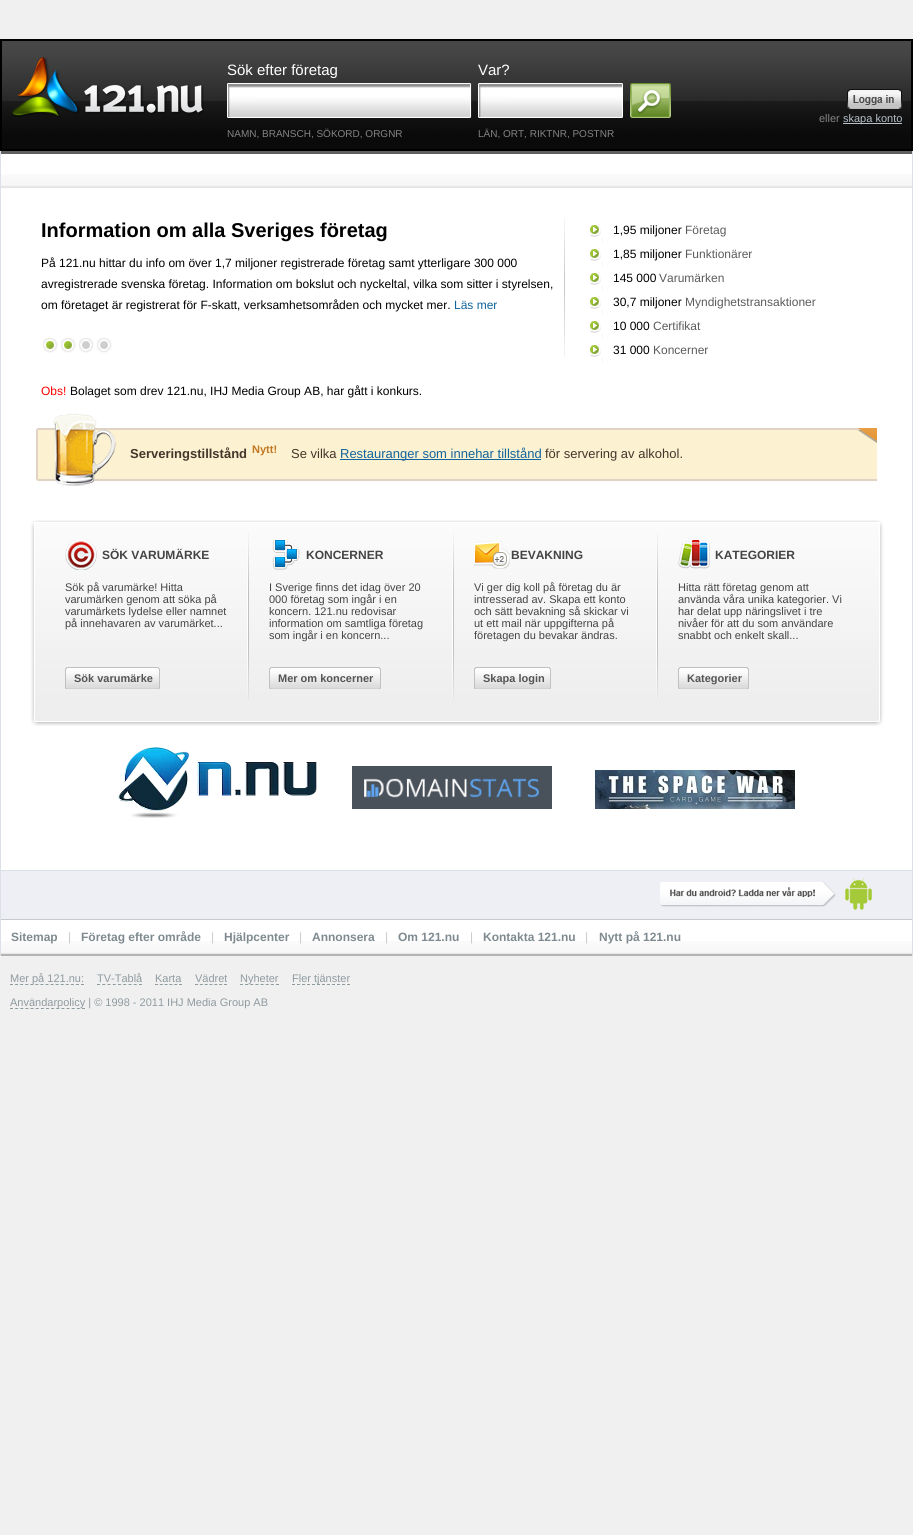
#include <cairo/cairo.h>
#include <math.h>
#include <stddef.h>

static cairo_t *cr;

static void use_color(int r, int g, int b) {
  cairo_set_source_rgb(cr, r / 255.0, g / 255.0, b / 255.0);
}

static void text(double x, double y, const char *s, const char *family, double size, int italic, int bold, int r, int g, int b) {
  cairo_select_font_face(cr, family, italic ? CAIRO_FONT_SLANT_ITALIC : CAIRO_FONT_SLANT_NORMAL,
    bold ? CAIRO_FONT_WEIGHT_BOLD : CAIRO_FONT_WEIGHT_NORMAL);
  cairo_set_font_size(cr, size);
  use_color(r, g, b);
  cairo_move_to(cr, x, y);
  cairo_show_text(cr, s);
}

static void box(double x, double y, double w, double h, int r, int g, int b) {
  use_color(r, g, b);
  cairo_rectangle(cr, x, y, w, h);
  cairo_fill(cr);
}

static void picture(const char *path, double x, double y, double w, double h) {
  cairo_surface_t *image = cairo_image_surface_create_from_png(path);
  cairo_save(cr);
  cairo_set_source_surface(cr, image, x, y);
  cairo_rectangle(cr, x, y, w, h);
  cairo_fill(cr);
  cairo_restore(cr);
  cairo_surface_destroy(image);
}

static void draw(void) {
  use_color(240, 240, 240);
  cairo_paint(cr);
  picture("img_01.png", 2, 41, 909, 108);
  cairo_rectangle(cr, 1, 40, 911, 110);
  use_color(0, 0, 0);
  cairo_stroke(cr);
  picture("img_02.png", 12, 57, 192, 60);
  picture("img_03.png", 227, 83, 30, 35);
  picture("img_04.png", 257, 83, 215, 35);
  picture("img_05.png", 478, 83, 30, 35);
  picture("img_06.png", 508, 83, 115, 35);
  picture("img_07.png", 630, 83, 41, 35);
  picture("img_08.png", 847, 89, 55, 20);
  box(843, 123, 59, 1, 183, 192, 201);
  box(1, 154, 911, 787, 255, 255, 255);
  box(912, 151, 1, 805, 219, 225, 230);
  box(0, 151, 1, 805, 219, 225, 230);
  picture("img_09.png", 1, 174, 911, 14);
  box(1, 151, 911, 3, 96, 96, 96);
  picture("img_10.png", 43, 338, 15, 15);
  picture("img_10.png", 61, 338, 15, 15);
  picture("img_11.png", 79, 338, 15, 15);
  picture("img_11.png", 97, 338, 15, 15);
  picture("img_12.png", 564, 218, 1, 139);
  picture("img_13.png", 590, 225, 13, 17);
  picture("img_13.png", 590, 249, 13, 17);
  picture("img_13.png", 590, 273, 13, 17);
  picture("img_13.png", 590, 297, 13, 17);
  picture("img_13.png", 590, 321, 13, 17);
  picture("img_13.png", 590, 345, 13, 17);
  picture("img_14.png", 36, 413, 841, 73);
  box(340, 459, 201, 1, 17, 100, 157);
  picture("img_15.png", 38, 520, 838, 206);
  picture("img_16.png", 24, 520, 14, 206);
  picture("img_17.png", 247, 532, 2, 167);
  picture("img_18.png", 65, 540, 32, 30);
  picture("img_19.png", 65, 667, 4, 22);
  picture("img_20.png", 69, 667, 91, 22);
  picture("img_17.png", 452, 532, 2, 167);
  picture("img_21.png", 272, 540, 28, 30);
  picture("img_19.png", 269, 667, 4, 22);
  picture("img_22.png", 273, 667, 108, 22);
  picture("img_17.png", 656, 532, 2, 167);
  picture("img_23.png", 474, 541, 36, 28);
  picture("img_19.png", 474, 667, 4, 22);
  picture("img_24.png", 478, 667, 73, 22);
  picture("img_25.png", 678, 540, 32, 29);
  picture("img_19.png", 678, 667, 4, 22);
  picture("img_26.png", 682, 667, 67, 22);
  picture("img_27.png", 876, 520, 13, 206);
  picture("img_28.png", 118, 747, 199, 71);
  picture("img_29.png", 352, 766, 200, 43);
  picture("img_30.png", 595, 770, 200, 39);
  box(1, 871, 911, 48, 237, 239, 244);
  box(1, 870, 911, 1, 219, 225, 230);
  picture("img_31.png", 660, 878, 212, 32);
  picture("img_32.png", 1, 941, 911, 13);
  box(1, 919, 911, 1, 199, 202, 204);
  box(1, 954, 911, 2, 179, 179, 179);
  cairo_new_path(cr);
  cairo_move_to(cr, 10, 984.5);
  cairo_line_to(cr, 84, 984.5);
  use_color(143, 154, 159);
  cairo_set_line_width(cr, 1);
  cairo_set_dash(cr, (double[]){3, 2.07}, 2, 0);
  cairo_stroke(cr);
  cairo_new_path(cr);
  cairo_move_to(cr, 97, 984.5);
  cairo_line_to(cr, 142, 984.5);
  cairo_set_dash(cr, (double[]){3, 2.25}, 2, 0);
  cairo_stroke(cr);
  cairo_new_path(cr);
  cairo_move_to(cr, 155, 984.5);
  cairo_line_to(cr, 182, 984.5);
  cairo_set_dash(cr, (double[]){3, 1.8}, 2, 0);
  cairo_stroke(cr);
  cairo_new_path(cr);
  cairo_move_to(cr, 195, 984.5);
  cairo_line_to(cr, 227, 984.5);
  cairo_set_dash(cr, (double[]){3, 1.83}, 2, 0);
  cairo_stroke(cr);
  cairo_new_path(cr);
  cairo_move_to(cr, 240, 984.5);
  cairo_line_to(cr, 279, 984.5);
  cairo_set_dash(cr, (double[]){3, 2.14}, 2, 0);
  cairo_stroke(cr);
  cairo_new_path(cr);
  cairo_move_to(cr, 292, 984.5);
  cairo_line_to(cr, 350, 984.5);
  cairo_set_dash(cr, (double[]){3, 2}, 2, 0);
  cairo_stroke(cr);
  cairo_new_path(cr);
  cairo_move_to(cr, 10, 1008.5);
  cairo_line_to(cr, 85, 1008.5);
  cairo_set_dash(cr, (double[]){3, 2.14}, 2, 0);
  cairo_stroke(cr);
  text(227, 75, "Sök efter företag", "Liberation Sans", 15, 0, 0, 255, 255, 255);
  text(227, 137, "NAMN, BRANSCH, SÖKORD, ORGNR", "Liberation Sans", 10, 0, 0, 132, 132, 132);
  text(478, 75, "Var?", "Liberation Sans", 15, 0, 0, 255, 255, 255);
  text(478, 137, "LÄN, ORT, RIKTNR, POSTNR", "Liberation Sans", 10, 0, 0, 132, 132, 132);
  text(819, 122, "eller", "Liberation Sans", 11, 0, 0, 132, 132, 132);
  text(843, 122, "skapa konto", "Liberation Sans", 11, 0, 0, 183, 192, 201);
  text(41, 237, "Information om alla Sveriges företag", "Liberation Sans", 20, 0, 1, 0, 0, 0);
  text(41, 267, "På 121.nu hittar du info om över 1,7 miljoner registrerade företag samt ytterligare 300 000", "Liberation Sans", 12, 0, 0, 0, 0, 0);
  text(41, 288, "avregistrerade svenska företag. Information om bokslut och nyckeltal, vilka som sitter i styrelsen,", "Liberation Sans", 12, 0, 0, 0, 0, 0);
  text(41, 309, "om företaget är registrerat för F-skatt, verksamhetsområden och mycket mer.", "Liberation Sans", 12, 0, 0, 0, 0, 0);
  text(454, 309, "Läs mer", "Liberation Sans", 12, 0, 0, 17, 100, 157);
  text(41, 395, "Obs!", "Liberation Sans", 12, 0, 0, 255, 0, 0);
  text(70, 395, "Bolaget som drev 121.nu, IHJ Media Group AB, har gått i konkurs.", "Liberation Sans", 12, 0, 0, 0, 0, 0);
  text(613, 234, "1,95 miljoner", "Liberation Sans", 12, 0, 0, 0, 0, 0);
  text(685, 234, "Företag", "Liberation Sans", 12, 0, 0, 91, 91, 91);
  text(613, 258, "1,85 miljoner", "Liberation Sans", 12, 0, 0, 0, 0, 0);
  text(685, 258, "Funktionärer", "Liberation Sans", 12, 0, 0, 91, 91, 91);
  text(613, 282, "145 000", "Liberation Sans", 12, 0, 0, 0, 0, 0);
  text(659, 282, "Varumärken", "Liberation Sans", 12, 0, 0, 91, 91, 91);
  text(613, 306, "30,7 miljoner", "Liberation Sans", 12, 0, 0, 0, 0, 0);
  text(685, 306, "Myndighetstransaktioner", "Liberation Sans", 12, 0, 0, 91, 91, 91);
  text(613, 330, "10 000", "Liberation Sans", 12, 0, 0, 0, 0, 0);
  text(653, 330, "Certifikat", "Liberation Sans", 12, 0, 0, 91, 91, 91);
  text(613, 354, "31 000", "Liberation Sans", 12, 0, 0, 0, 0, 0);
  text(653, 354, "Koncerner", "Liberation Sans", 12, 0, 0, 91, 91, 91);
  text(130, 458, "Serveringstillstånd", "Liberation Sans", 13, 0, 1, 66, 55, 43);
  text(252, 453, "Nytt!", "Liberation Sans", 11, 0, 1, 193, 120, 35);
  text(291, 458, "Se vilka", "Liberation Sans", 13, 0, 0, 66, 55, 43);
  text(340, 458, "Restauranger som innehar tillstånd", "Liberation Sans", 13, 0, 0, 17, 100, 157);
  text(545, 458, "för servering av alkohol.", "Liberation Sans", 13, 0, 0, 66, 55, 43);
  text(102, 559, "SÖK VARUMÄRKE", "Liberation Sans", 12, 0, 1, 68, 68, 68);
  text(65, 591, "Sök på varumärke! Hitta", "Liberation Sans", 11, 0, 0, 68, 68, 68);
  text(65, 603, "varumärken genom att söka på", "Liberation Sans", 11, 0, 0, 68, 68, 68);
  text(65, 615, "varumärkets lydelse eller namnet", "Liberation Sans", 11, 0, 0, 68, 68, 68);
  text(65, 627, "på innehavaren av varumärket...", "Liberation Sans", 11, 0, 0, 68, 68, 68);
  text(74, 682, "Sök varumärke", "Liberation Sans", 11, 0, 1, 84, 84, 84);
  text(306, 559, "KONCERNER", "Liberation Sans", 12, 0, 1, 68, 68, 68);
  text(269, 591, "I Sverige finns det idag över 20", "Liberation Sans", 11, 0, 0, 68, 68, 68);
  text(269, 603, "000 företag som ingår i en", "Liberation Sans", 11, 0, 0, 68, 68, 68);
  text(269, 615, "koncern. 121.nu redovisar", "Liberation Sans", 11, 0, 0, 68, 68, 68);
  text(269, 627, "information om samtliga företag", "Liberation Sans", 11, 0, 0, 68, 68, 68);
  text(269, 639, "som ingår i en koncern...", "Liberation Sans", 11, 0, 0, 68, 68, 68);
  text(278, 682, "Mer om koncerner", "Liberation Sans", 11, 0, 1, 84, 84, 84);
  text(511, 559, "BEVAKNING", "Liberation Sans", 12, 0, 1, 68, 68, 68);
  text(474, 591, "Vi ger dig koll på företag du är", "Liberation Sans", 11, 0, 0, 68, 68, 68);
  text(474, 603, "intresserad av. Skapa ett konto", "Liberation Sans", 11, 0, 0, 68, 68, 68);
  text(474, 615, "och sätt bevakning så skickar vi", "Liberation Sans", 11, 0, 0, 68, 68, 68);
  text(474, 627, "ut ett mail när uppgifterna på", "Liberation Sans", 11, 0, 0, 68, 68, 68);
  text(474, 639, "företagen du bevakar ändras.", "Liberation Sans", 11, 0, 0, 68, 68, 68);
  text(483, 682, "Skapa login", "Liberation Sans", 11, 0, 1, 84, 84, 84);
  text(715, 559, "KATEGORIER", "Liberation Sans", 12, 0, 1, 68, 68, 68);
  text(678, 591, "Hitta rätt företag genom att", "Liberation Sans", 11, 0, 0, 68, 68, 68);
  text(678, 603, "använda våra unika kategorier. Vi", "Liberation Sans", 11, 0, 0, 68, 68, 68);
  text(678, 615, "har delat upp näringslivet i tre", "Liberation Sans", 11, 0, 0, 68, 68, 68);
  text(678, 627, "nivåer för att du som användare", "Liberation Sans", 11, 0, 0, 68, 68, 68);
  text(678, 639, "snabbt och enkelt skall...", "Liberation Sans", 11, 0, 0, 68, 68, 68);
  text(687, 682, "Kategorier", "Liberation Sans", 11, 0, 1, 84, 84, 84);
  text(11, 941, "Sitemap", "Liberation Sans", 12, 0, 1, 126, 138, 143);
  text(68, 941, "|", "Liberation Sans", 12, 0, 0, 199, 202, 204);
  text(81, 941, "Företag efter område", "Liberation Sans", 12, 0, 1, 126, 138, 143);
  text(211, 941, "|", "Liberation Sans", 12, 0, 0, 199, 202, 204);
  text(224, 941, "Hjälpcenter", "Liberation Sans", 12, 0, 1, 126, 138, 143);
  text(299, 941, "|", "Liberation Sans", 12, 0, 0, 199, 202, 204);
  text(312, 941, "Annonsera", "Liberation Sans", 12, 0, 1, 126, 138, 143);
  text(385, 941, "|", "Liberation Sans", 12, 0, 0, 199, 202, 204);
  text(398, 941, "Om 121.nu", "Liberation Sans", 12, 0, 1, 126, 138, 143);
  text(470, 941, "|", "Liberation Sans", 12, 0, 0, 199, 202, 204);
  text(483, 941, "Kontakta 121.nu", "Liberation Sans", 12, 0, 1, 126, 138, 143);
  text(585, 941, "|", "Liberation Sans", 12, 0, 0, 199, 202, 204);
  text(599, 941, "Nytt på 121.nu", "Liberation Sans", 12, 0, 1, 126, 138, 143);
  text(10, 982, "Mer på 121.nu:", "Liberation Sans", 11, 0, 0, 143, 154, 159);
  text(97, 982, "TV-Tablå", "Liberation Sans", 11, 0, 0, 143, 154, 159);
  text(155, 982, "Karta", "Liberation Sans", 11, 0, 0, 143, 154, 159);
  text(195, 982, "Vädret", "Liberation Sans", 11, 0, 0, 143, 154, 159);
  text(240, 982, "Nyheter", "Liberation Sans", 11, 0, 0, 143, 154, 159);
  text(292, 982, "Fler tjänster", "Liberation Sans", 11, 0, 0, 143, 154, 159);
  text(10, 1006, "Användarpolicy | © 1998 - 2011 IHJ Media Group AB", "Liberation Sans", 11, 0, 0, 143, 154, 159);
}

int main(void) {
  cairo_surface_t *surface = cairo_image_surface_create(CAIRO_FORMAT_RGB24, 913, 1535);
  cr = cairo_create(surface);
  cairo_font_options_t *options = cairo_font_options_create();
  cairo_font_options_set_hint_metrics(options, CAIRO_HINT_METRICS_OFF);
  cairo_font_options_set_hint_style(options, CAIRO_HINT_STYLE_NONE);
  cairo_set_font_options(cr, options);
  cairo_set_miter_limit(cr, 4);
  draw();
  cairo_surface_write_to_png(surface, "out.png");
  cairo_font_options_destroy(options);
  cairo_destroy(cr);
  cairo_surface_destroy(surface);
  return 0;
}
